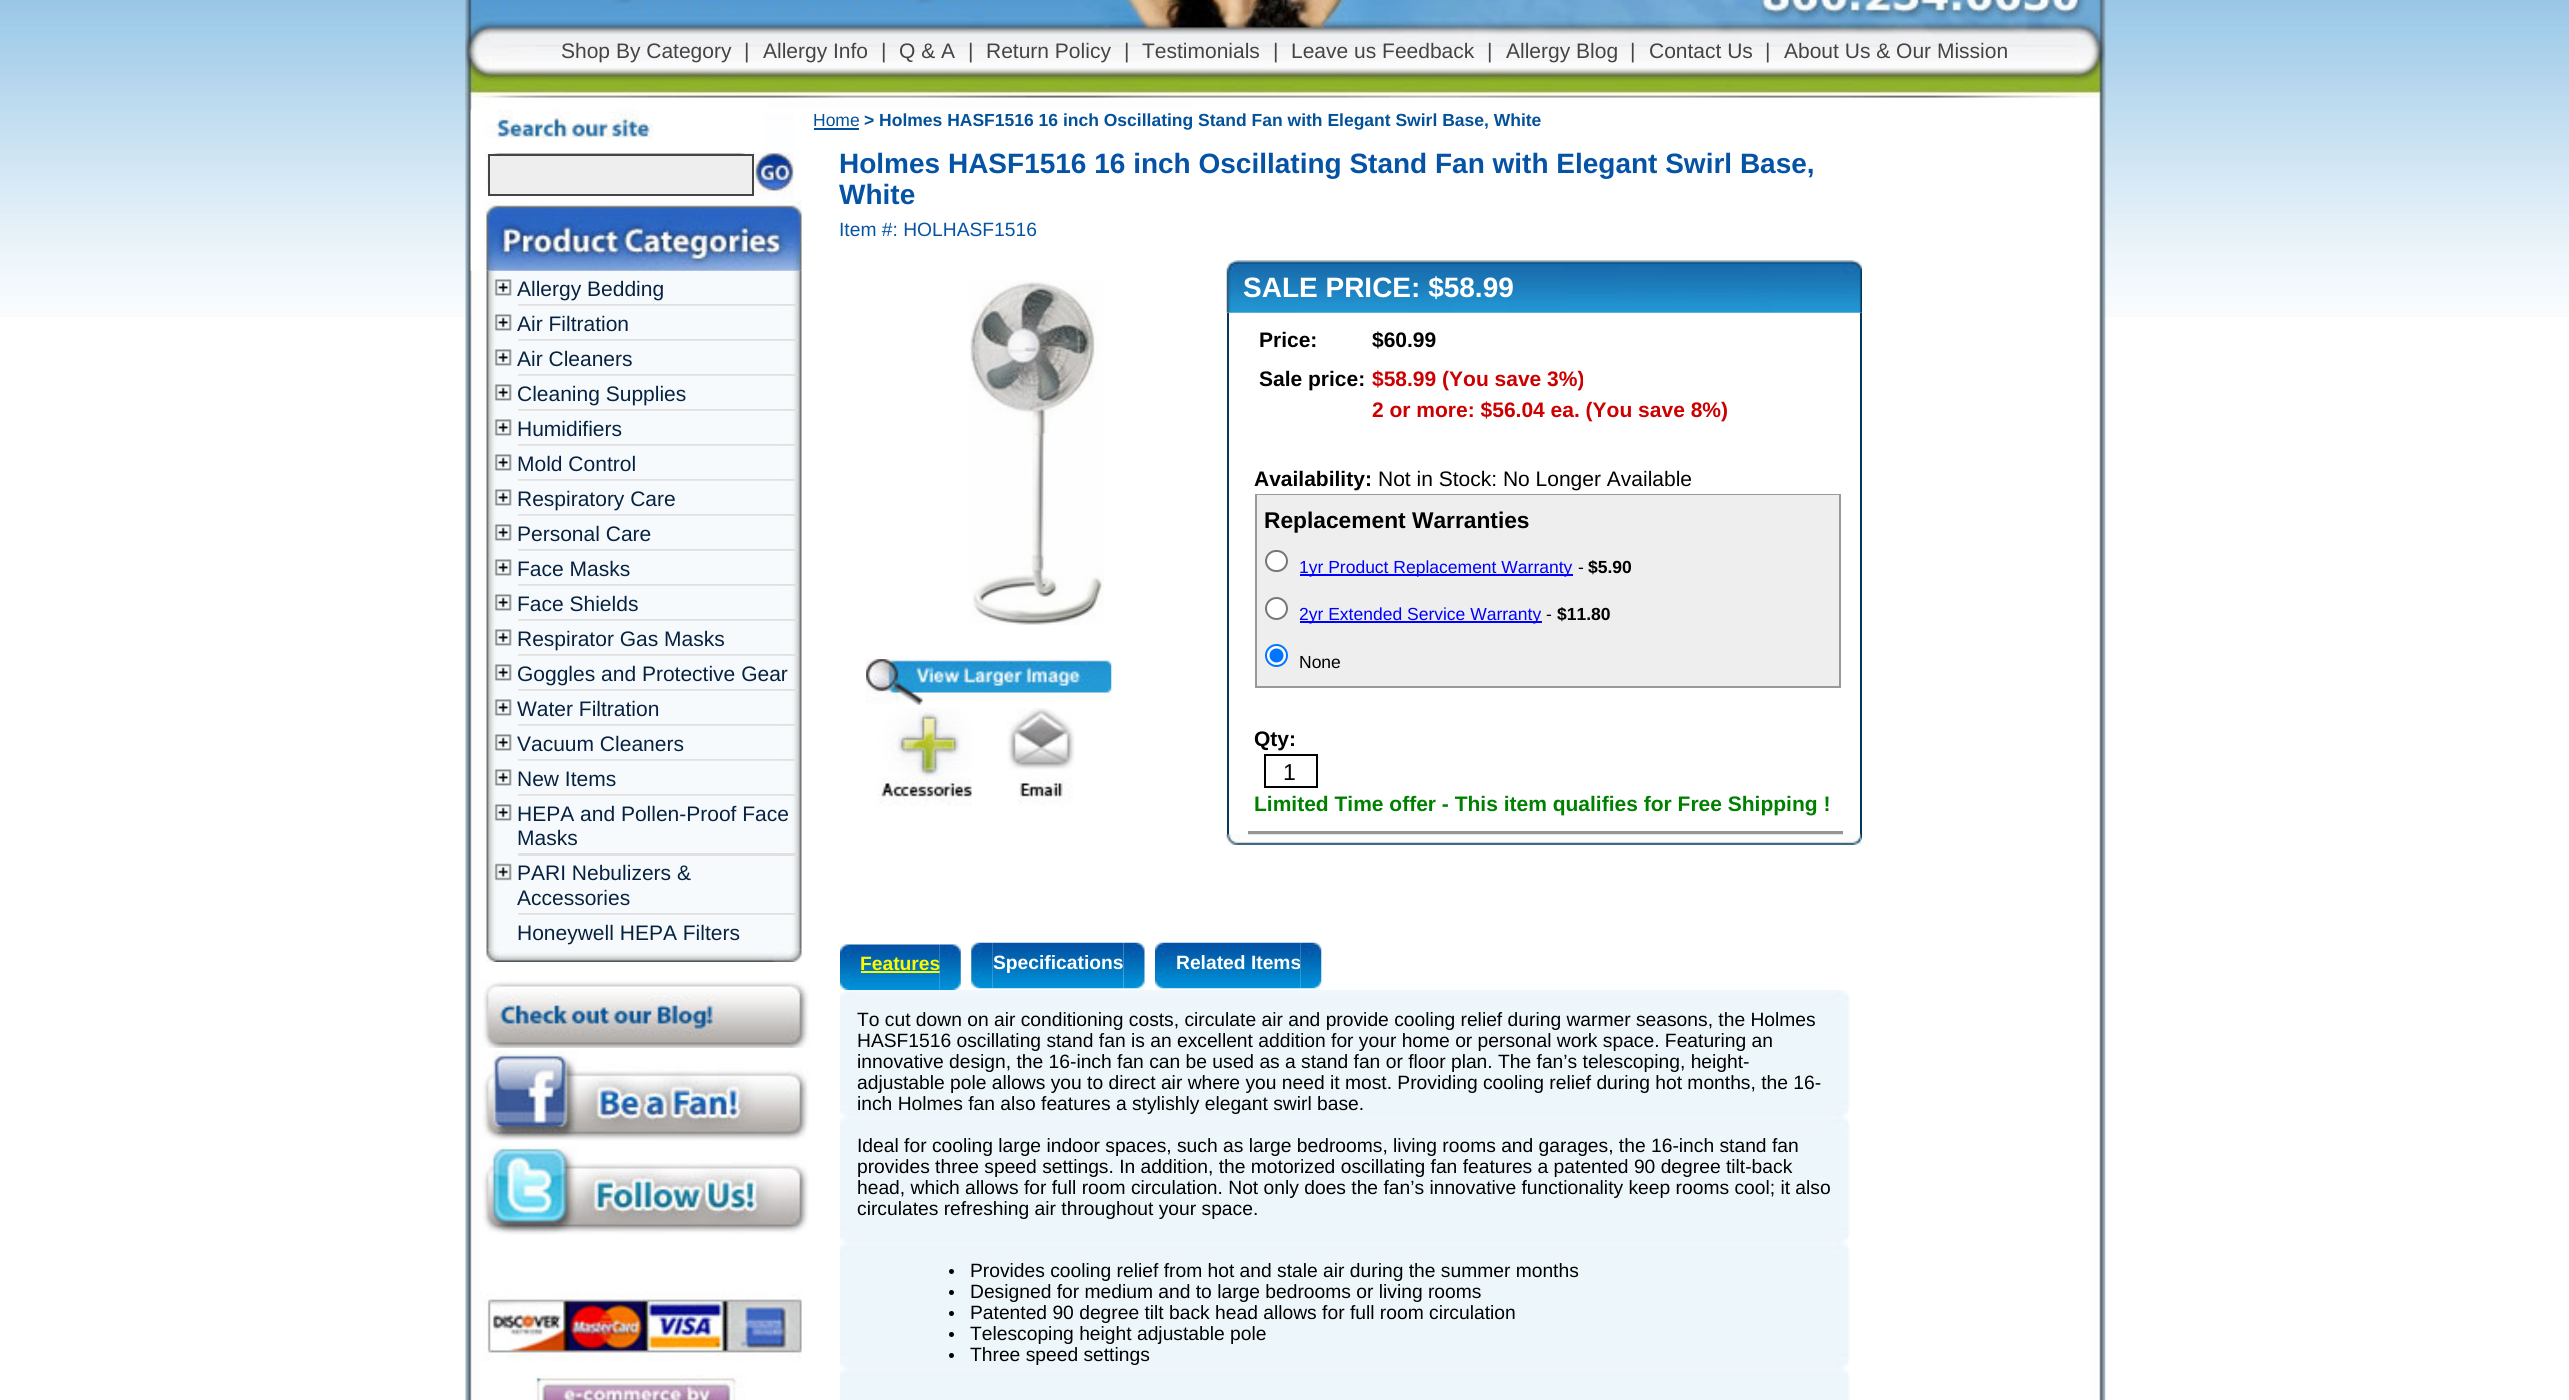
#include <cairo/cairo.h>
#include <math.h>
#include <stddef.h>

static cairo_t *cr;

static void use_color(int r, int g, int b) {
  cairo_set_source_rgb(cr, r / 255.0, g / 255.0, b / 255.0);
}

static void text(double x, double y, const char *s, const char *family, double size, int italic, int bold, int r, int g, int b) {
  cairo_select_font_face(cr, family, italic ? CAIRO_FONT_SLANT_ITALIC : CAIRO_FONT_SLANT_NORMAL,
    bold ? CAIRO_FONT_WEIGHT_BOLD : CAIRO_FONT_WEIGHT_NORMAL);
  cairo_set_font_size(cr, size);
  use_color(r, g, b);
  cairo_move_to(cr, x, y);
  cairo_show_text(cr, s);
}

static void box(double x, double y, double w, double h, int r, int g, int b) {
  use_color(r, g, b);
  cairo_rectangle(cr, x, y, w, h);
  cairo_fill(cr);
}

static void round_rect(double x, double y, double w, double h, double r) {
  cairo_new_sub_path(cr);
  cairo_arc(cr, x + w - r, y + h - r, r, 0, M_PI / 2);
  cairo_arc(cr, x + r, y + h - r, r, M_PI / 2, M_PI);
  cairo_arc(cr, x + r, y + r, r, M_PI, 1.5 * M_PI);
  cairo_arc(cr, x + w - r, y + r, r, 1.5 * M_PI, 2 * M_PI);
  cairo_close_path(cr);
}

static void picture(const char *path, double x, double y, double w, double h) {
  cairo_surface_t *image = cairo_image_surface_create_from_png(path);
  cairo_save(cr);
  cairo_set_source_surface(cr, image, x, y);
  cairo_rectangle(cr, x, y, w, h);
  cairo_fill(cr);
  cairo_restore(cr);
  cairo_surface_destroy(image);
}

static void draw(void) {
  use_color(255, 255, 255);
  cairo_paint(cr);
  picture("img_01.png", 0, 0, 2569, 317);
  picture("img_02.png", 465, 0, 1641, 1400);
  picture("img_03.png", 465, 0, 1641, 110);
  picture("img_06.png", 486, 270, 316, 680);
  picture("img_05.png", 470, 200, 332, 71);
  picture("img_04.png", 470, 109, 324, 92);
  use_color(238, 238, 238);
  cairo_rectangle(cr, 489, 155, 264, 40);
  cairo_fill_preserve(cr);
  use_color(68, 68, 68);
  cairo_stroke(cr);
  picture("img_07.png", 518, 304, 280, 2);
  picture("img_08.png", 494, 279, 18, 17);
  picture("img_07.png", 518, 339, 280, 2);
  picture("img_08.png", 494, 314, 18, 17);
  picture("img_07.png", 518, 374, 280, 2);
  picture("img_08.png", 494, 349, 18, 17);
  picture("img_07.png", 518, 409, 280, 2);
  picture("img_08.png", 494, 384, 18, 17);
  picture("img_07.png", 518, 444, 280, 2);
  picture("img_08.png", 494, 419, 18, 17);
  picture("img_07.png", 518, 479, 280, 2);
  picture("img_08.png", 494, 454, 18, 17);
  picture("img_07.png", 518, 514, 280, 2);
  picture("img_08.png", 494, 489, 18, 17);
  picture("img_07.png", 518, 549, 280, 2);
  picture("img_08.png", 494, 524, 18, 17);
  picture("img_07.png", 518, 584, 280, 2);
  picture("img_08.png", 494, 559, 18, 17);
  picture("img_07.png", 518, 619, 280, 2);
  picture("img_08.png", 494, 594, 18, 17);
  picture("img_07.png", 518, 654, 280, 2);
  picture("img_08.png", 494, 629, 18, 17);
  picture("img_07.png", 518, 689, 280, 2);
  picture("img_08.png", 494, 664, 18, 17);
  picture("img_07.png", 518, 724, 280, 2);
  picture("img_08.png", 494, 699, 18, 17);
  picture("img_07.png", 518, 759, 280, 2);
  picture("img_08.png", 494, 734, 18, 17);
  picture("img_07.png", 518, 794, 280, 2);
  picture("img_08.png", 494, 769, 18, 17);
  box(518, 853, 280, 3, 225, 223, 224);
  picture("img_08.png", 494, 804, 18, 17);
  picture("img_07.png", 518, 913, 280, 2);
  picture("img_09.png", 494, 863, 18, 18);
  picture("img_10.png", 486, 949, 316, 13);
  picture("img_11.png", 480, 980, 330, 68);
  picture("img_12.png", 482, 1051, 327, 90);
  picture("img_13.png", 481, 1145, 328, 90);
  picture("img_14.png", 480, 1291, 322, 109);
  box(814, 128, 45, 2, 3, 81, 153);
  picture("img_15.png", 969, 280, 135, 345);
  picture("img_16.png", 866, 659, 246, 46);
  picture("img_17.png", 877, 708, 95, 98);
  picture("img_18.png", 1007, 708, 68, 98);
  picture("img_19.png", 1226, 260, 636, 53);
  box(1860, 313, 2, 522, 5, 55, 92);
  box(1227, 313, 2, 522, 5, 55, 92);
  cairo_rectangle(cr, 1256, 495, 584, 192);
  use_color(153, 153, 153);
  cairo_stroke(cr);
  box(1257, 495, 582, 49, 238, 238, 238);
  box(1257, 544, 582, 48, 238, 238, 238);
  use_color(255, 255, 255);
  round_rect(1266, 551, 21, 20, 10);
  cairo_fill_preserve(cr);
  use_color(118, 118, 118);
  cairo_stroke(cr);
  box(1300, 574, 273, 2, 0, 0, 255);
  box(1257, 592, 582, 47, 238, 238, 238);
  use_color(255, 255, 255);
  cairo_arc(cr, 1276.5, 608.5, 10.5, 0, 2 * M_PI);
  cairo_fill_preserve(cr);
  use_color(118, 118, 118);
  cairo_stroke(cr);
  box(1300, 621, 242, 2, 0, 0, 255);
  box(1257, 639, 582, 47, 238, 238, 238);
  use_color(255, 255, 255);
  cairo_arc(cr, 1276.5, 655.5, 10.5, 0, 2 * M_PI);
  cairo_fill_preserve(cr);
  use_color(0, 117, 255);
  cairo_stroke(cr);
  cairo_arc(cr, 1276.5, 655.5, 7, 0, 2 * M_PI);
  cairo_fill(cr);
  cairo_rectangle(cr, 1265, 755, 52, 32);
  use_color(0, 0, 0);
  cairo_stroke(cr);
  box(1248, 831, 595, 4, 149, 149, 149);
  picture("img_20.png", 1226, 834, 636, 11);
  picture("img_21.png", 840, 944, 21, 46);
  picture("img_22.png", 861, 944, 79, 46);
  box(861, 971, 79, 2, 252, 249, 3);
  picture("img_24.png", 971, 942, 22, 47);
  picture("img_25.png", 992, 942, 132, 47);
  picture("img_26.png", 1123, 942, 22, 47);
  picture("img_27.png", 1155, 942, 21, 47);
  picture("img_28.png", 1176, 942, 125, 47);
  picture("img_30.png", 840, 990, 1010, 410);
  use_color(0, 0, 0);
  cairo_arc(cr, 951.5, 1271.5, 2.5, 0, 2 * M_PI);
  cairo_fill(cr);
  cairo_arc(cr, 951.5, 1292.5, 2.5, 0, 2 * M_PI);
  cairo_fill(cr);
  cairo_arc(cr, 951.5, 1313.5, 2.5, 0, 2 * M_PI);
  cairo_fill(cr);
  cairo_arc(cr, 951.5, 1334.5, 2.5, 0, 2 * M_PI);
  cairo_fill(cr);
  cairo_arc(cr, 951.5, 1355.5, 2.5, 0, 2 * M_PI);
  cairo_fill(cr);
  text(561, 58, "Shop By Category", "Liberation Sans", 21, 0, 0, 68, 68, 68);
  text(744, 58, "|", "Liberation Sans", 21, 0, 0, 68, 68, 68);
  text(763, 58, "Allergy Info", "Liberation Sans", 21, 0, 0, 68, 68, 68);
  text(881, 58, "|", "Liberation Sans", 21, 0, 0, 68, 68, 68);
  text(899, 58, "Q & A", "Liberation Sans", 21, 0, 0, 68, 68, 68);
  text(968, 58, "|", "Liberation Sans", 21, 0, 0, 68, 68, 68);
  text(986, 58, "Return Policy", "Liberation Sans", 21, 0, 0, 68, 68, 68);
  text(1124, 58, "|", "Liberation Sans", 21, 0, 0, 68, 68, 68);
  text(1142, 58, "Testimonials", "Liberation Sans", 21, 0, 0, 68, 68, 68);
  text(1273, 58, "|", "Liberation Sans", 21, 0, 0, 68, 68, 68);
  text(1291, 58, "Leave us Feedback", "Liberation Sans", 21, 0, 0, 68, 68, 68);
  text(1487, 58, "|", "Liberation Sans", 21, 0, 0, 68, 68, 68);
  text(1506, 58, "Allergy Blog", "Liberation Sans", 21, 0, 0, 68, 68, 68);
  text(1630, 58, "|", "Liberation Sans", 21, 0, 0, 68, 68, 68);
  text(1649, 58, "Contact Us", "Liberation Sans", 21, 0, 0, 68, 68, 68);
  text(1765, 58, "|", "Liberation Sans", 21, 0, 0, 68, 68, 68);
  text(1784, 58, "About Us & Our Mission", "Liberation Sans", 21, 0, 0, 68, 68, 68);
  text(517, 296, "Allergy Bedding", "Liberation Sans", 21, 0, 0, 7, 34, 64);
  text(517, 331, "Air Filtration", "Liberation Sans", 21, 0, 0, 7, 34, 64);
  text(517, 366, "Air Cleaners", "Liberation Sans", 21, 0, 0, 7, 34, 64);
  text(517, 401, "Cleaning Supplies", "Liberation Sans", 21, 0, 0, 7, 34, 64);
  text(517, 436, "Humidifiers", "Liberation Sans", 21, 0, 0, 7, 34, 64);
  text(517, 471, "Mold Control", "Liberation Sans", 21, 0, 0, 7, 34, 64);
  text(517, 506, "Respiratory Care", "Liberation Sans", 21, 0, 0, 7, 34, 64);
  text(517, 541, "Personal Care", "Liberation Sans", 21, 0, 0, 7, 34, 64);
  text(517, 576, "Face Masks", "Liberation Sans", 21, 0, 0, 7, 34, 64);
  text(517, 611, "Face Shields", "Liberation Sans", 21, 0, 0, 7, 34, 64);
  text(517, 646, "Respirator Gas Masks", "Liberation Sans", 21, 0, 0, 7, 34, 64);
  text(517, 681, "Goggles and Protective Gear", "Liberation Sans", 21, 0, 0, 7, 34, 64);
  text(517, 716, "Water Filtration", "Liberation Sans", 21, 0, 0, 7, 34, 64);
  text(517, 751, "Vacuum Cleaners", "Liberation Sans", 21, 0, 0, 7, 34, 64);
  text(517, 786, "New Items", "Liberation Sans", 21, 0, 0, 7, 34, 64);
  text(517, 821, "HEPA and Pollen-Proof Face", "Liberation Sans", 21, 0, 0, 7, 34, 64);
  text(517, 845, "Masks", "Liberation Sans", 21, 0, 0, 7, 34, 64);
  text(517, 880, "PARI Nebulizers &", "Liberation Sans", 21, 0, 0, 7, 34, 64);
  text(517, 905, "Accessories", "Liberation Sans", 21, 0, 0, 7, 34, 64);
  text(517, 940, "Honeywell HEPA Filters", "Liberation Sans", 21, 0, 0, 7, 34, 64);
  text(813, 126, "Home", "Liberation Sans", 17.5, 0, 0, 3, 81, 153);
  text(864, 126, "> Holmes HASF1516 16 inch Oscillating Stand Fan with Elegant Swirl Base, White", "Liberation Sans", 17.5, 0, 1, 3, 81, 153);
  text(839, 173, "Holmes HASF1516 16 inch Oscillating Stand Fan with Elegant Swirl Base,", "Liberation Sans", 28, 0, 1, 5, 83, 165);
  text(839, 204, "White", "Liberation Sans", 28, 0, 1, 5, 83, 165);
  text(839, 236, "Item #: HOLHASF1516", "Liberation Sans", 19.25, 0, 0, 5, 83, 165);
  text(1243, 297, "SALE PRICE: $58.99", "Liberation Sans", 28, 0, 1, 255, 255, 255);
  text(1259, 347, "Price:", "Liberation Sans", 21, 0, 1, 0, 0, 0);
  text(1372, 347, "$60.99", "Liberation Sans", 21, 0, 1, 0, 0, 0);
  text(1259, 386, "Sale price:", "Liberation Sans", 21, 0, 1, 0, 0, 0);
  text(1372, 386, "$58.99 (You save 3%)", "Liberation Sans", 21, 0, 1, 204, 0, 0);
  text(1372, 417, "2 or more: $56.04 ea. (You save 8%)", "Liberation Sans", 21, 0, 1, 204, 0, 0);
  text(1254, 486, "Availability:", "Liberation Sans", 21, 0, 1, 0, 0, 0);
  text(1378, 486, "Not in Stock: No Longer Available", "Liberation Sans", 21, 0, 0, 0, 0, 0);
  text(1264, 528, "Replacement Warranties", "Liberation Sans", 22.75, 0, 1, 0, 0, 0);
  text(1299, 573, "1yr Product Replacement Warranty", "Liberation Sans", 17.5, 0, 0, 0, 0, 255);
  text(1578, 573, "-", "Liberation Sans", 17.5, 0, 0, 0, 0, 0);
  text(1588, 573, "$5.90", "Liberation Sans", 17.5, 0, 1, 0, 0, 0);
  text(1299, 620, "2yr Extended Service Warranty", "Liberation Sans", 17.5, 0, 0, 0, 0, 255);
  text(1546, 620, "-", "Liberation Sans", 17.5, 0, 0, 0, 0, 0);
  text(1557, 620, "$11.80", "Liberation Sans", 17.5, 0, 1, 0, 0, 0);
  text(1299, 668, "None", "Liberation Sans", 17.5, 0, 0, 0, 0, 0);
  text(1254, 746, "Qty:", "Liberation Sans", 21, 0, 1, 0, 0, 0);
  text(1283, 780, "1", "Liberation Sans", 23, 0, 0, 0, 0, 0);
  text(1254, 811, "Limited Time offer - This item qualifies for Free Shipping !", "Liberation Sans", 21, 0, 1, 0, 128, 0);
  text(860, 970, "Features", "Liberation Sans", 19.25, 0, 1, 252, 249, 3);
  picture("img_23.png", 939, 944, 22, 46);
  text(993, 969, "Specifications", "Liberation Sans", 19.25, 0, 1, 255, 255, 255);
  text(1176, 969, "Related Items", "Liberation Sans", 19.25, 0, 1, 255, 255, 255);
  picture("img_29.png", 1300, 942, 22, 47);
  text(857, 1026, "To cut down on air conditioning costs, circulate air and provide cooling relief during warmer seasons, the Holmes", "Liberation Sans", 19.25, 0, 0, 0, 0, 0);
  text(857, 1047, "HASF1516 oscillating stand fan is an excellent addition for your home or personal work space. Featuring an", "Liberation Sans", 19.25, 0, 0, 0, 0, 0);
  text(857, 1068, "innovative design, the 16-inch fan can be used as a stand fan or floor plan. The fan’s telescoping, height-", "Liberation Sans", 19.25, 0, 0, 0, 0, 0);
  text(857, 1089, "adjustable pole allows you to direct air where you need it most. Providing cooling relief during hot months, the 16-", "Liberation Sans", 19.25, 0, 0, 0, 0, 0);
  text(857, 1110, "inch Holmes fan also features a stylishly elegant swirl base.", "Liberation Sans", 19.25, 0, 0, 0, 0, 0);
  text(857, 1152, "Ideal for cooling large indoor spaces, such as large bedrooms, living rooms and garages, the 16-inch stand fan", "Liberation Sans", 19.25, 0, 0, 0, 0, 0);
  text(857, 1173, "provides three speed settings. In addition, the motorized oscillating fan features a patented 90 degree tilt-back", "Liberation Sans", 19.25, 0, 0, 0, 0, 0);
  text(857, 1194, "head, which allows for full room circulation. Not only does the fan’s innovative functionality keep rooms cool; it also", "Liberation Sans", 19.25, 0, 0, 0, 0, 0);
  text(857, 1215, "circulates refreshing air throughout your space.", "Liberation Sans", 19.25, 0, 0, 0, 0, 0);
  text(970, 1277, "Provides cooling relief from hot and stale air during the summer months", "Liberation Sans", 19.25, 0, 0, 0, 0, 0);
  text(970, 1298, "Designed for medium and to large bedrooms or living rooms", "Liberation Sans", 19.25, 0, 0, 0, 0, 0);
  text(970, 1319, "Patented 90 degree tilt back head allows for full room circulation", "Liberation Sans", 19.25, 0, 0, 0, 0, 0);
  text(970, 1340, "Telescoping height adjustable pole", "Liberation Sans", 19.25, 0, 0, 0, 0, 0);
  text(970, 1361, "Three speed settings", "Liberation Sans", 19.25, 0, 0, 0, 0, 0);
}

int main(void) {
  cairo_surface_t *surface = cairo_image_surface_create(CAIRO_FORMAT_RGB24, 2569, 1400);
  cr = cairo_create(surface);
  cairo_font_options_t *options = cairo_font_options_create();
  cairo_font_options_set_hint_metrics(options, CAIRO_HINT_METRICS_OFF);
  cairo_font_options_set_hint_style(options, CAIRO_HINT_STYLE_NONE);
  cairo_set_font_options(cr, options);
  cairo_set_miter_limit(cr, 4);
  draw();
  cairo_surface_write_to_png(surface, "out.png");
  cairo_font_options_destroy(options);
  cairo_destroy(cr);
  cairo_surface_destroy(surface);
  return 0;
}
